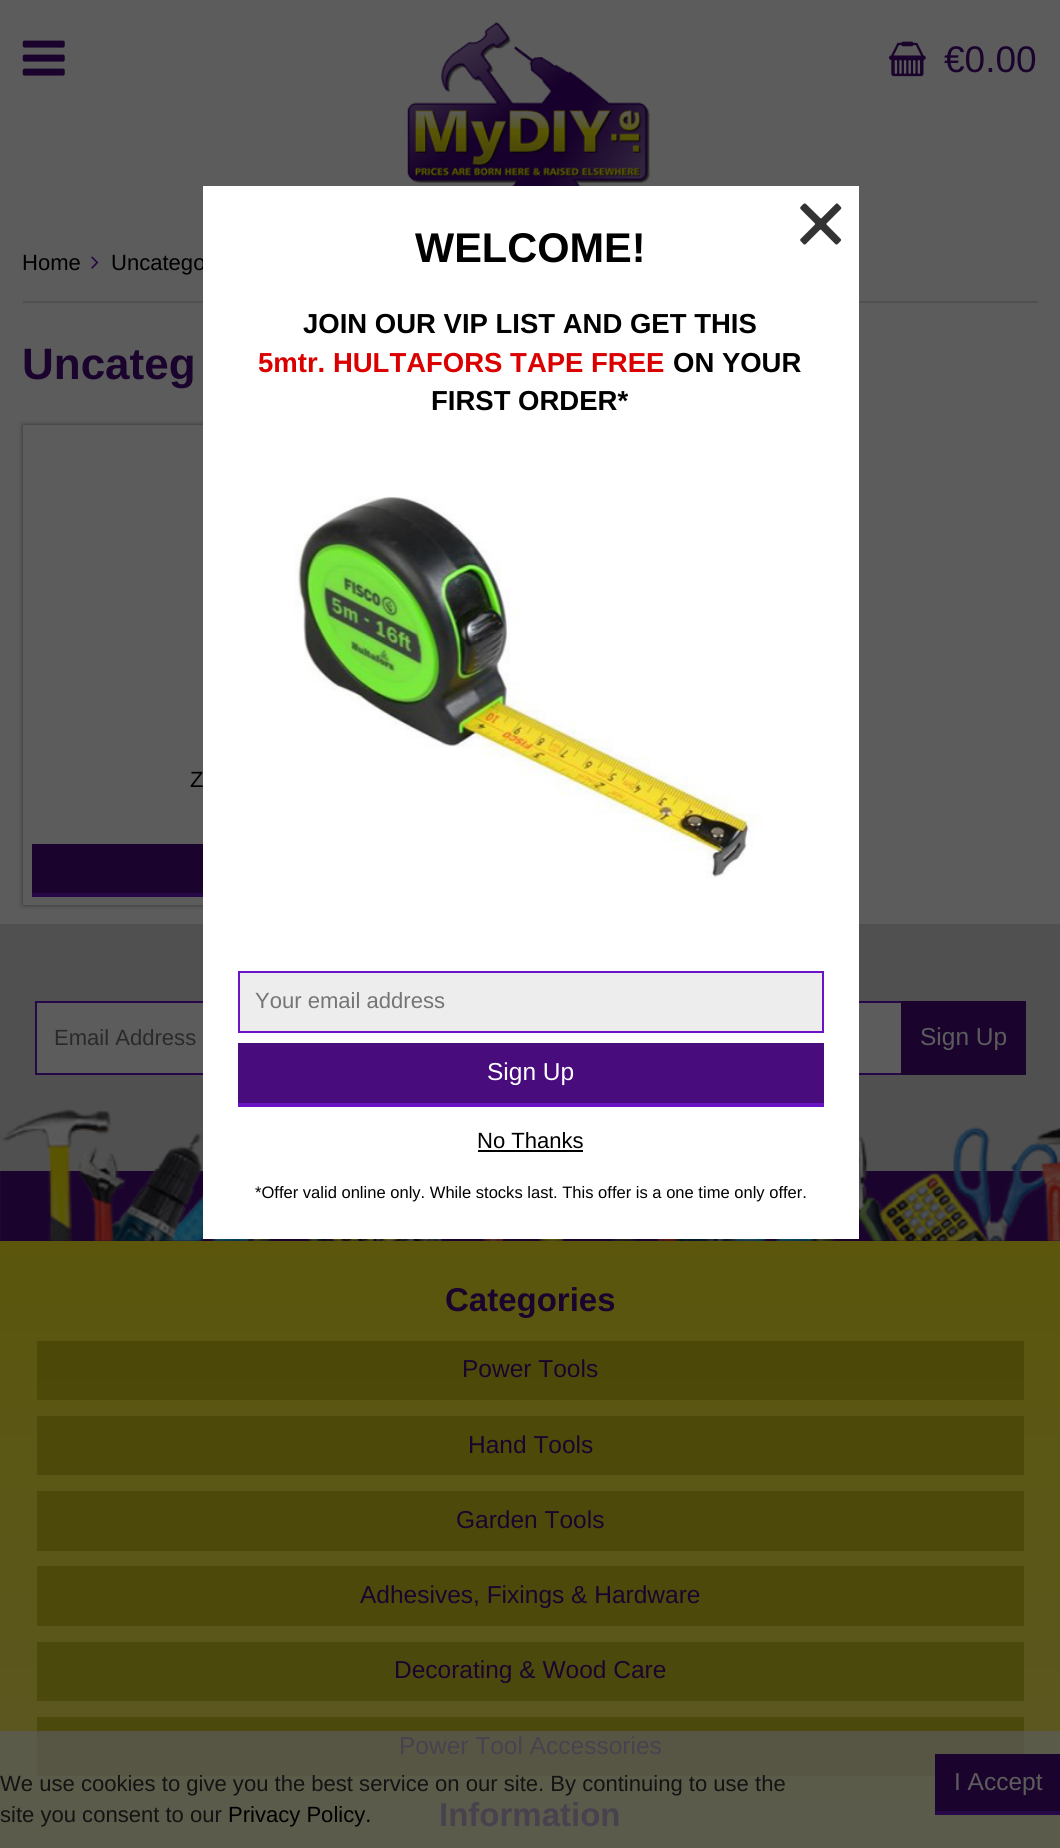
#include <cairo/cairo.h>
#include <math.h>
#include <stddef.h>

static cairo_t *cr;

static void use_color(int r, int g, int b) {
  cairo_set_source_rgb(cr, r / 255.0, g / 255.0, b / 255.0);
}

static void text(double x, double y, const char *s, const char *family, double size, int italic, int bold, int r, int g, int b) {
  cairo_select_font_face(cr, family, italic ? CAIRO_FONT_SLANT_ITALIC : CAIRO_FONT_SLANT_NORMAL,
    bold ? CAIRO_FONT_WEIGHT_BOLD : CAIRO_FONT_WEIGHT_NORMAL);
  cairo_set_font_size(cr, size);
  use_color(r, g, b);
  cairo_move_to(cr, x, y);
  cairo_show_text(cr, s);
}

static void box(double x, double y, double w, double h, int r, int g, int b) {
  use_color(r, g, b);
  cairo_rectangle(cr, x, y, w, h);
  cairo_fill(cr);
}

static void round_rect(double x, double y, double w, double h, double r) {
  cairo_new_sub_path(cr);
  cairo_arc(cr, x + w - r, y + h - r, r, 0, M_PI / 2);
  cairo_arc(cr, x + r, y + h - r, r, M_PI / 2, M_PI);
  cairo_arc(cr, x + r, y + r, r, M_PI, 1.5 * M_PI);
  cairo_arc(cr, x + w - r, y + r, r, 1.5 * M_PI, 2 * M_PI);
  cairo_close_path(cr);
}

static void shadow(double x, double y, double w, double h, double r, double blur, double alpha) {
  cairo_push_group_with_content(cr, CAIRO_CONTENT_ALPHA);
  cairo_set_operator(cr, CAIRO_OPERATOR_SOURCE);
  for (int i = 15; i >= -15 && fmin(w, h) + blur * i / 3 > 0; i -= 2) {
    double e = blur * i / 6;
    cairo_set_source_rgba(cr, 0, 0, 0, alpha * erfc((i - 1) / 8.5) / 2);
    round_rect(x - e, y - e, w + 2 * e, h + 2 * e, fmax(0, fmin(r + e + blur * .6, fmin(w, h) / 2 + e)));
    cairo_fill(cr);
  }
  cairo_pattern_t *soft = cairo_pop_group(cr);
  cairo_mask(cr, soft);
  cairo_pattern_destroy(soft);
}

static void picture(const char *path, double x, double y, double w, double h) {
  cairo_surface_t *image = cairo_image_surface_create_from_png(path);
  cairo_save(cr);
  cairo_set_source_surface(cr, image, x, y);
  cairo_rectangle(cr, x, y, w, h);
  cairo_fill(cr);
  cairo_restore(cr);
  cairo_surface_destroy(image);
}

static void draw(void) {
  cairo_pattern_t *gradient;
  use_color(92, 92, 92);
  cairo_paint(cr);
  picture("img_01.png", 22, 40, 43, 36);
  picture("img_02.png", 407, 22, 243, 164);
  picture("img_03.png", 889, 41, 37, 36);
  box(23, 301, 1015, 2, 80, 80, 80);
  picture("img_04.png", 91, 256, 8, 13);
  cairo_save(cr);
  cairo_set_fill_rule(cr, CAIRO_FILL_RULE_EVEN_ODD);
  cairo_new_path(cr);
  cairo_move_to(cr, 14, 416);
  cairo_line_to(cr, 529, 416);
  cairo_line_to(cr, 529, 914);
  cairo_line_to(cr, 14, 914);
  cairo_close_path(cr);
  cairo_move_to(cr, 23, 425);
  cairo_line_to(cr, 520, 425);
  cairo_line_to(cr, 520, 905);
  cairo_line_to(cr, 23, 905);
  cairo_close_path(cr);
  cairo_clip(cr);
  use_color(49, 49, 49);
  shadow(23, 425, 497, 480, 0, 2.5, 1);
  cairo_restore(cr);
  box(32, 844, 171, 49, 26, 4, 45);
  box(32, 893, 171, 4, 38, 7, 71);
  box(0, 924, 1060, 247, 80, 80, 80);
  box(37, 1003, 864, 70, 92, 92, 92);
  cairo_rectangle(cr, 36, 1002, 989, 72);
  use_color(38, 7, 71);
  cairo_stroke(cr);
  box(901, 1001, 125, 74, 26, 4, 45);
  gradient = cairo_pattern_create_linear(530, 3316, 530, 1241);
  cairo_pattern_add_color_stop_rgba(gradient, 0, 0.361, 0.361, 0.361, 1);
  cairo_pattern_add_color_stop_rgba(gradient, 1, 0.357, 0.337, 0.047, 1);
  cairo_set_source(cr, gradient);
  cairo_pattern_destroy(gradient);
  cairo_rectangle(cr, 0, 1241, 1060, 490);
  cairo_fill(cr);
  gradient = cairo_pattern_create_linear(530, 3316, 530, 1241);
  cairo_pattern_add_color_stop_rgba(gradient, 0, 0.361, 0.361, 0.361, 1);
  cairo_pattern_add_color_stop_rgba(gradient, 1, 0.357, 0.353, 0.267, 1);
  cairo_set_source(cr, gradient);
  cairo_pattern_destroy(gradient);
  cairo_rectangle(cr, 0, 1731, 1060, 117);
  cairo_fill(cr);
  gradient = cairo_pattern_create_linear(530, 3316, 530, 1241);
  cairo_pattern_add_color_stop_rgba(gradient, 0, 0.298, 0.29, 0.122, 1);
  cairo_pattern_add_color_stop_rgba(gradient, 1, 0.298, 0.286, 0.027, 1);
  cairo_set_source(cr, gradient);
  cairo_pattern_destroy(gradient);
  cairo_rectangle(cr, 37, 1717, 987, 14);
  cairo_fill(cr);
  gradient = cairo_pattern_create_linear(530, 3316, 530, 1241);
  cairo_pattern_add_color_stop_rgba(gradient, 0, 0.341, 0.337, 0.286, 1);
  cairo_pattern_add_color_stop_rgba(gradient, 1, 0.341, 0.337, 0.259, 1);
  cairo_set_source(cr, gradient);
  cairo_pattern_destroy(gradient);
  cairo_rectangle(cr, 37, 1731, 987, 45);
  cairo_fill(cr);
  gradient = cairo_pattern_create_linear(530, 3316, 530, 1241);
  cairo_pattern_add_color_stop_rgba(gradient, 0, 0.298, 0.29, 0.122, 1);
  cairo_pattern_add_color_stop_rgba(gradient, 1, 0.298, 0.286, 0.027, 1);
  cairo_set_source(cr, gradient);
  cairo_pattern_destroy(gradient);
  cairo_rectangle(cr, 37, 1642, 987, 59);
  cairo_fill(cr);
  cairo_rectangle(cr, 37, 1566, 987, 60);
  cairo_fill(cr);
  cairo_rectangle(cr, 37, 1491, 987, 60);
  cairo_fill(cr);
  cairo_rectangle(cr, 37, 1416, 987, 59);
  cairo_fill(cr);
  cairo_rectangle(cr, 37, 1341, 987, 59);
  cairo_fill(cr);
  box(0, 1171, 1060, 70, 26, 4, 45);
  picture("img_07.png", 0, 1109, 1060, 132);
  box(935, 1754, 125, 57, 26, 4, 45);
  box(935, 1811, 125, 4, 38, 7, 71);
  text(944, 72, "€0.00", "Liberation Sans", 37, 0, 0, 26, 4, 45);
  text(22, 270, "Home", "Liberation Sans", 22.05, 0, 0, 0, 0, 0);
  text(111, 270, "Uncatego", "Liberation Sans", 22.05, 0, 0, 0, 0, 0);
  text(22, 379, "Uncateg", "Liberation Sans", 44, 0, 1, 26, 4, 45);
  text(190, 787, "Z", "Liberation Sans", 22.05, 0, 0, 0, 0, 0);
  box(203, 186, 656, 1053, 255, 255, 255);
  picture("img_05.png", 800, 203, 42, 42);
  text(415, 262, "WELCOME!", "Liberation Sans", 41.5, 0, 1, 0, 0, 0);
  text(303, 333, "JOIN OUR VIP LIST AND GET THIS", "Liberation Sans", 27.5, 0, 1, 0, 0, 0);
  text(258, 372, "5mtr. HULTAFORS TAPE FREE", "Liberation Sans", 27.5, 0, 1, 218, 0, 0);
  text(673, 372, "ON YOUR", "Liberation Sans", 27.5, 0, 1, 0, 0, 0);
  text(431, 410, "FIRST ORDER*", "Liberation Sans", 27.5, 0, 1, 0, 0, 0);
  picture("img_06.png", 294, 496, 470, 383);
  use_color(237, 237, 237);
  cairo_rectangle(cr, 239, 972, 584, 60);
  cairo_fill_preserve(cr);
  use_color(106, 20, 198);
  cairo_stroke(cr);
  text(255, 1008, "Your email address", "Liberation Sans", 22.05, 0, 0, 117, 117, 117);
  box(238, 1043, 586, 60, 72, 12, 125);
  box(238, 1103, 586, 4, 106, 20, 198);
  text(487, 1080, "Sign Up", "Liberation Sans", 24.5, 0, 0, 255, 255, 255);
  text(477, 1148, "No Thanks", "Liberation Sans", 22.05, 0, 0, 0, 0, 0);
  box(478, 1150, 105, 2, 0, 0, 0);
  text(255, 1198, "*Offer valid online only. While stocks last. This offer is a one time only offer.", "Liberation Sans", 16.55, 0, 0, 0, 0, 0);
  text(54, 1045, "Email Address", "Liberation Sans", 22.05, 0, 0, 42, 42, 42);
  text(920, 1045, "Sign Up", "Liberation Sans", 24.5, 0, 0, 92, 92, 92);
  text(445, 1311, "Categories", "Liberation Sans", 33, 0, 1, 26, 4, 45);
  text(462, 1377, "Power Tools", "Liberation Sans", 24.5, 0, 0, 26, 4, 45);
  text(468, 1453, "Hand Tools", "Liberation Sans", 24.5, 0, 0, 26, 4, 45);
  text(456, 1528, "Garden Tools", "Liberation Sans", 24.5, 0, 0, 26, 4, 45);
  text(360, 1603, "Adhesives, Fixings & Hardware", "Liberation Sans", 24.5, 0, 0, 26, 4, 45);
  text(394, 1678, "Decorating & Wood Care", "Liberation Sans", 24.5, 0, 0, 26, 4, 45);
  text(399, 1754, "Power Tool Accessories", "Liberation Sans", 24.5, 0, 0, 72, 65, 78);
  text(439, 1826, "Information", "Liberation Sans", 33, 0, 1, 72, 65, 78);
  text(0, 1791, "We use cookies to give you the best service on our site. By continuing to use the", "Liberation Sans", 22.05, 0, 0, 19, 19, 19);
  text(0, 1822, "site you consent to our", "Liberation Sans", 22.05, 0, 0, 19, 19, 19);
  text(228, 1822, "Privacy Policy.", "Liberation Sans", 22.05, 0, 0, 0, 0, 0);
  text(954, 1790, "I Accept", "Liberation Sans", 24.5, 0, 0, 92, 92, 92);
}

int main(void) {
  cairo_surface_t *surface = cairo_image_surface_create(CAIRO_FORMAT_RGB24, 1060, 1848);
  cr = cairo_create(surface);
  cairo_font_options_t *options = cairo_font_options_create();
  cairo_font_options_set_hint_metrics(options, CAIRO_HINT_METRICS_OFF);
  cairo_font_options_set_hint_style(options, CAIRO_HINT_STYLE_NONE);
  cairo_set_font_options(cr, options);
  cairo_set_miter_limit(cr, 4);
  draw();
  cairo_surface_write_to_png(surface, "out.png");
  cairo_font_options_destroy(options);
  cairo_destroy(cr);
  cairo_surface_destroy(surface);
  return 0;
}
